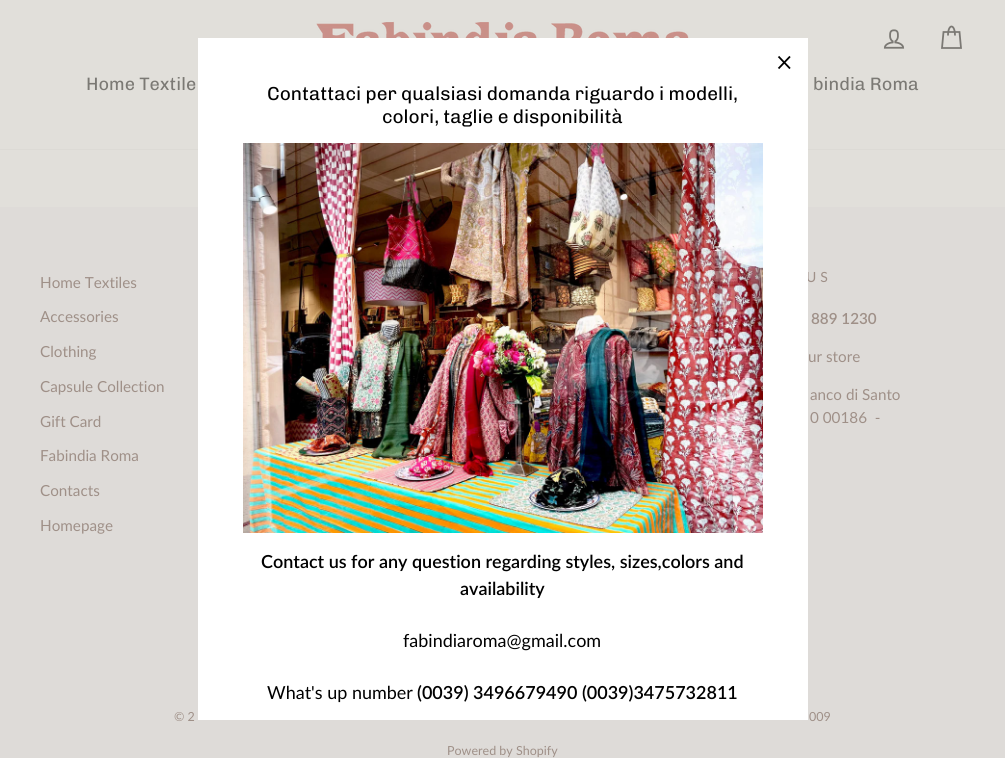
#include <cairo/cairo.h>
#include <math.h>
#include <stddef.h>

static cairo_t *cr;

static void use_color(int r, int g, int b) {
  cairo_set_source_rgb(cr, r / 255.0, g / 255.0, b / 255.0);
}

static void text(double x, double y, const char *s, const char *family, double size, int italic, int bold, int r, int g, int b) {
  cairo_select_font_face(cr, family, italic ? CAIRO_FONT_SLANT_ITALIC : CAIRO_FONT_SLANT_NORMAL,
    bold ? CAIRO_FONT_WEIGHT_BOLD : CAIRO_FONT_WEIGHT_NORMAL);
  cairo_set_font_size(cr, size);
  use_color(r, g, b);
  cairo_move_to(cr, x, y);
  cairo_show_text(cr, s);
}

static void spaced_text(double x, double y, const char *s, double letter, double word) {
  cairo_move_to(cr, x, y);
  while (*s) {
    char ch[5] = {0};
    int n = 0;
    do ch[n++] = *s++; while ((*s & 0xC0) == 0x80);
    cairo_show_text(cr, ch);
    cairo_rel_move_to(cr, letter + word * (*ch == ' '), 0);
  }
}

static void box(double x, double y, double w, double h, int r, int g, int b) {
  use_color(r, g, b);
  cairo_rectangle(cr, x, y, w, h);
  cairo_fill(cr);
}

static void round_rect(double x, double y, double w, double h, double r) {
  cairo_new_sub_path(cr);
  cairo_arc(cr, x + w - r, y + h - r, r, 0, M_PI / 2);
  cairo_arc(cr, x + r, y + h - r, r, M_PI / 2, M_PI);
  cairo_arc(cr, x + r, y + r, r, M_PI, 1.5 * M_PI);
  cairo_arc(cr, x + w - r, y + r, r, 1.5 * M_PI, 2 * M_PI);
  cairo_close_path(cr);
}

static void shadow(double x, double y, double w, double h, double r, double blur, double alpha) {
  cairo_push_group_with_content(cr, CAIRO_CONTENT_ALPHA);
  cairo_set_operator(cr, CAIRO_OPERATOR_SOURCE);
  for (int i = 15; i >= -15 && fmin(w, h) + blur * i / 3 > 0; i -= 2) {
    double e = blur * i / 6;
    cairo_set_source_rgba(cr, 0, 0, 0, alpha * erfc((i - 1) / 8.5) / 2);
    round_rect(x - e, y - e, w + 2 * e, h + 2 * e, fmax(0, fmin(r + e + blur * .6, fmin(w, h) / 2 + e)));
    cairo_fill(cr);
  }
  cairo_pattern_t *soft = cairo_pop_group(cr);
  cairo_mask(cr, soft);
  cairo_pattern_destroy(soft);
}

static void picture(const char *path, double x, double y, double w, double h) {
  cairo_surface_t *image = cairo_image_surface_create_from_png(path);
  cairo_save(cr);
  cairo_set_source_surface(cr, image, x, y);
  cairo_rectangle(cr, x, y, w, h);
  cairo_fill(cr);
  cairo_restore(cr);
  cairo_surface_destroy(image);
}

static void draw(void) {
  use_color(225, 223, 218);
  cairo_paint(cr);
  use_color(123, 121, 116);
  shadow(0, 0, 1005, 149, 0, 0.5, 0.2);
  box(0, 0, 1005, 149, 225, 223, 218);
  picture("img_01.png", 316, 21, 373, 17);
  picture("img_02.png", 883, 29, 22, 20);
  cairo_new_path(cr);
  cairo_move_to(cr, 948, 35.5);
  cairo_curve_to(cr, 948, 23.5, 955, 23.5, 955, 35.5);
  cairo_move_to(cr, 943.5, 32);
  cairo_line_to(cr, 959.5, 32);
  cairo_line_to(cr, 961, 48);
  cairo_line_to(cr, 942, 48);
  cairo_close_path(cr);
  use_color(123, 121, 116);
  cairo_set_line_width(cr, 1.8);
  cairo_stroke(cr);
  box(0, 207, 1005, 551, 222, 219, 216);
  text(86, 90, "Home Textile", "Chivo", 18, 0, 0, 123, 121, 116);
  text(813, 90, "bindia Roma", "Chivo", 18, 0, 0, 123, 121, 116);
  text(40, 288, "Home Textiles", "Lato", 15.25, 0, 0, 159, 144, 136);
  text(40, 322, "Accessories", "Lato", 15.25, 0, 0, 159, 144, 136);
  text(40, 357, "Clothing", "Lato", 15.25, 0, 0, 159, 144, 136);
  text(40, 392, "Capsule Collection", "Lato", 15.25, 0, 0, 159, 144, 136);
  text(40, 427, "Gift Card", "Lato", 15.25, 0, 0, 159, 144, 136);
  text(40, 461, "Fabindia Roma", "Lato", 15.25, 0, 0, 159, 144, 136);
  text(40, 496, "Contacts", "Lato", 15.25, 0, 0, 159, 144, 136);
  text(40, 531, "Homepage", "Lato", 15.25, 0, 0, 159, 144, 136);
  cairo_set_font_size(cr, 14);
  spaced_text(806, 282, "US", 4, 0);
  text(811, 324, "889 1230", "Lato SemiBold", 15.25, 0, 0, 159, 144, 136);
  text(808, 362, "ur store", "Lato", 15.25, 0, 0, 159, 144, 136);
  text(810, 400, "anco di Santo", "Lato", 15.25, 0, 0, 159, 144, 136);
  text(810, 423, "0 00186  -", "Lato", 15.25, 0, 0, 159, 144, 136);
  text(174, 721, "© 2", "Lato", 12.5, 0, 0, 159, 144, 136);
  text(809, 721, "009", "Lato", 12.5, 0, 0, 159, 144, 136);
  text(447, 755, "Powered by Shopify", "Lato", 12.5, 0, 0, 159, 144, 136);
  box(198, 38, 610, 682, 255, 255, 255);
  cairo_new_path(cr);
  cairo_move_to(cr, 778.5, 56.5);
  cairo_line_to(cr, 790, 68.5);
  cairo_move_to(cr, 790, 56.5);
  cairo_line_to(cr, 778.5, 68.5);
  use_color(0, 0, 0);
  cairo_stroke(cr);
  text(267, 100, "Contattaci per qualsiasi domanda riguardo i modelli,", "Chivo", 18.9, 0, 0, 0, 0, 0);
  text(382, 123, "colori, taglie e disponibilità", "Chivo", 18.9, 0, 0, 0, 0, 0);
  picture("img_03.png", 243, 143, 520, 390);
  text(261, 568, "Contact us for any question regarding styles, sizes,colors and", "Lato SemiBold", 18, 0, 0, 0, 0, 0);
  text(460, 595, "availability", "Lato SemiBold", 18, 0, 0, 0, 0, 0);
  text(403, 647, "fabindiaroma@gmail.com", "Lato", 18, 0, 0, 0, 0, 0);
  text(267, 699, "What's up number", "Lato", 18, 0, 0, 0, 0, 0);
  text(417, 699, "(0039) 3496679490 (0039)3475732811", "Lato SemiBold", 18, 0, 0, 0, 0, 0);
}

int main(void) {
  cairo_surface_t *surface = cairo_image_surface_create(CAIRO_FORMAT_RGB24, 1005, 758);
  cr = cairo_create(surface);
  cairo_font_options_t *options = cairo_font_options_create();
  cairo_font_options_set_hint_metrics(options, CAIRO_HINT_METRICS_OFF);
  cairo_font_options_set_hint_style(options, CAIRO_HINT_STYLE_NONE);
  cairo_set_font_options(cr, options);
  cairo_set_miter_limit(cr, 4);
  draw();
  cairo_surface_write_to_png(surface, "out.png");
  cairo_font_options_destroy(options);
  cairo_destroy(cr);
  cairo_surface_destroy(surface);
  return 0;
}
